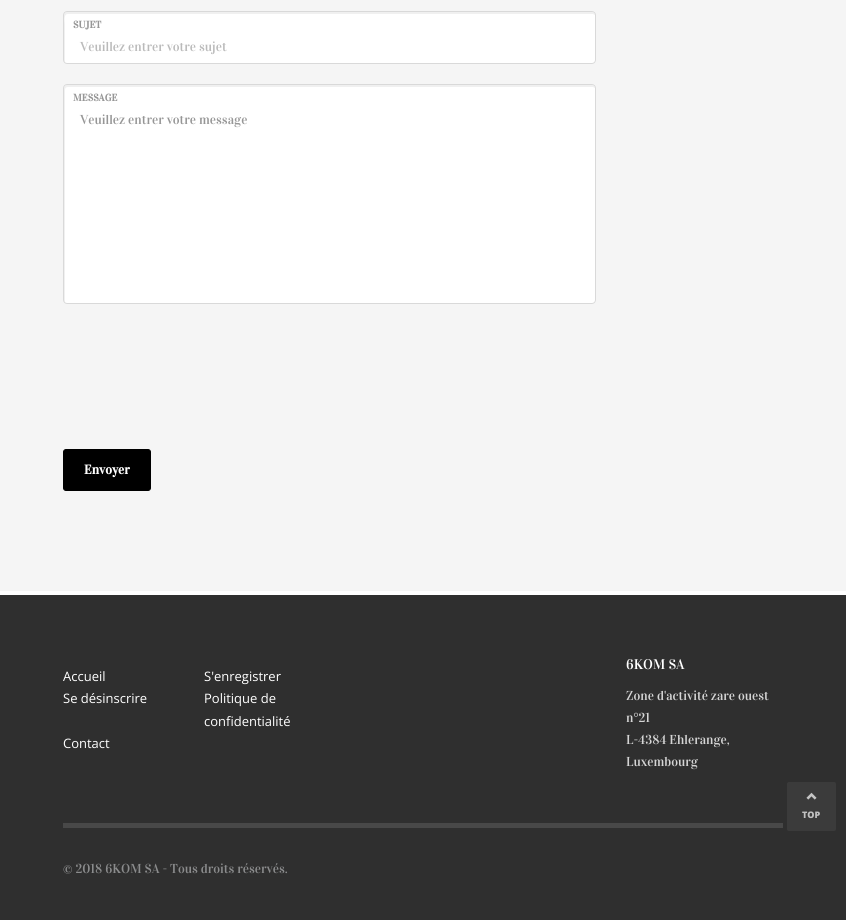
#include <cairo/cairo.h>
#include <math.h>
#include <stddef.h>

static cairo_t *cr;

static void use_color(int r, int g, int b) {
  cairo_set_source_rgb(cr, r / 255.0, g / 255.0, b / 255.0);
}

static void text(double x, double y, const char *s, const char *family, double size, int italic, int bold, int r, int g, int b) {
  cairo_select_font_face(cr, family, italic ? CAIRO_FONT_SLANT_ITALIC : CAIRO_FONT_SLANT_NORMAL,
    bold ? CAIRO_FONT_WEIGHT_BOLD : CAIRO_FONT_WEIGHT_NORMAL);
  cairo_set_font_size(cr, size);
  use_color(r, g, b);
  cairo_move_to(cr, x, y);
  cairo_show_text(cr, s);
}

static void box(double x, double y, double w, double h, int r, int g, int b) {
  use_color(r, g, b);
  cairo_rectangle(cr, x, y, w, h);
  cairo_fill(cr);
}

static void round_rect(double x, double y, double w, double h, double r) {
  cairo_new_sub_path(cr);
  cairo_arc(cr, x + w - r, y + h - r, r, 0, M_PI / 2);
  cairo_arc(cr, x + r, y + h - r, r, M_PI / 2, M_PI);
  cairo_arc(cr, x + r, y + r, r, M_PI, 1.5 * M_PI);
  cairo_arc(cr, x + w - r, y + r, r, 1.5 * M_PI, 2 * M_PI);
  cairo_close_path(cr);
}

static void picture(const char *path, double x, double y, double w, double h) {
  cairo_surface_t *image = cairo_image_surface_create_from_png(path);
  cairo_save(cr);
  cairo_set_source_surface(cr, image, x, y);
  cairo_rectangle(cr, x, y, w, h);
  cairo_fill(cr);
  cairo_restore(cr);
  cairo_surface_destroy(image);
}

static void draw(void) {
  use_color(245, 245, 245);
  cairo_paint(cr);
  use_color(255, 255, 255);
  round_rect(63, 11, 533, 53, 4);
  cairo_fill(cr);
  use_color(240, 240, 240);
  cairo_new_path(cr);
  cairo_move_to(cr, 68, 14);
  cairo_line_to(cr, 593, 14);
  cairo_line_to(cr, 595, 15);
  cairo_curve_to(cr, 595, 13, 593, 12, 592, 12);
  cairo_line_to(cr, 67, 12);
  cairo_curve_to(cr, 65, 12, 64, 13, 64, 15);
  cairo_line_to(cr, 64, 60);
  cairo_curve_to(cr, 64, 61, 64, 62, 65, 62);
  cairo_line_to(cr, 65, 24);
  cairo_curve_to(cr, 65, 22, 63, 14, 68, 14);
  cairo_close_path(cr);
  cairo_fill(cr);
  round_rect(63.5, 11.5, 532, 52, 3.5);
  use_color(217, 217, 217);
  cairo_set_line_width(cr, 1);
  cairo_stroke(cr);
  use_color(255, 255, 255);
  round_rect(63, 84, 533, 220, 4);
  cairo_fill(cr);
  use_color(240, 240, 240);
  cairo_new_path(cr);
  cairo_move_to(cr, 68, 87);
  cairo_line_to(cr, 593, 87);
  cairo_line_to(cr, 595, 88);
  cairo_curve_to(cr, 595, 86, 593, 85, 592, 85);
  cairo_line_to(cr, 67, 85);
  cairo_curve_to(cr, 65, 85, 64, 86, 64, 88);
  cairo_line_to(cr, 64, 300);
  cairo_curve_to(cr, 64, 301, 64, 302, 65, 302);
  cairo_line_to(cr, 65, 90);
  cairo_curve_to(cr, 65, 88, 66, 87, 68, 87);
  cairo_close_path(cr);
  cairo_fill(cr);
  round_rect(63.5, 84.5, 532, 219, 3.5);
  use_color(217, 217, 217);
  cairo_stroke(cr);
  use_color(0, 0, 0);
  round_rect(63.5, 449.5, 87, 41, 2.5);
  cairo_fill_preserve(cr);
  cairo_stroke(cr);
  box(0, 595, 846, 325, 47, 47, 47);
  box(0, 591, 846, 4, 255, 255, 255);
  box(63, 823, 720, 5, 72, 72, 72);
  use_color(59, 59, 59);
  round_rect(787, 782, 49, 49, 2);
  cairo_fill(cr);
  picture("img_01.png", 806, 792, 11, 8);
  text(73, 28, "SUJET", "Vidaloka", 10, 0, 1, 150, 150, 150);
  text(80, 51, "Veuillez entrer votre sujet", "Vidaloka", 13, 0, 0, 186, 186, 186);
  text(73, 101, "MESSAGE", "Vidaloka", 10, 0, 1, 150, 150, 150);
  text(80, 124, "Veuillez entrer votre message", "Vidaloka", 13, 0, 0, 150, 150, 150);
  text(84, 474, "Envoyer", "Vidaloka", 13, 0, 1, 255, 255, 255);
  text(63, 681, "Accueil", "Open Sans", 13, 0, 0, 255, 255, 255);
  text(204, 681, "S'enregistrer", "Open Sans", 13, 0, 0, 255, 255, 255);
  text(63, 703, "Se désinscrire", "Open Sans", 13, 0, 0, 255, 255, 255);
  text(204, 703, "Politique de", "Open Sans", 13, 0, 0, 255, 255, 255);
  text(204, 726, "confidentialité", "Open Sans", 13, 0, 0, 255, 255, 255);
  text(63, 748, "Contact", "Open Sans", 13, 0, 0, 255, 255, 255);
  text(626, 669, "6KOM SA", "Vidaloka", 14, 0, 0, 255, 255, 255);
  text(626, 700, "Zone d'activité zare ouest", "Vidaloka", 13, 0, 0, 213, 213, 213);
  text(626, 722, "n°21", "Vidaloka", 13, 0, 0, 213, 213, 213);
  text(626, 744, "L-4384 Ehlerange,", "Vidaloka", 13, 0, 0, 213, 213, 213);
  text(626, 766, "Luxembourg", "Vidaloka", 13, 0, 0, 213, 213, 213);
  text(63, 873, "© 2018 6KOM SA - Tous droits réservés.", "Vidaloka", 13, 0, 0, 139, 140, 141);
  text(802, 818, "TOP", "Open Sans ExtraBold", 9, 0, 0, 193, 193, 193);
}

int main(void) {
  cairo_surface_t *surface = cairo_image_surface_create(CAIRO_FORMAT_RGB24, 846, 920);
  cr = cairo_create(surface);
  cairo_font_options_t *options = cairo_font_options_create();
  cairo_font_options_set_hint_metrics(options, CAIRO_HINT_METRICS_OFF);
  cairo_font_options_set_hint_style(options, CAIRO_HINT_STYLE_NONE);
  cairo_set_font_options(cr, options);
  cairo_set_miter_limit(cr, 4);
  draw();
  cairo_surface_write_to_png(surface, "out.png");
  cairo_font_options_destroy(options);
  cairo_destroy(cr);
  cairo_surface_destroy(surface);
  return 0;
}
